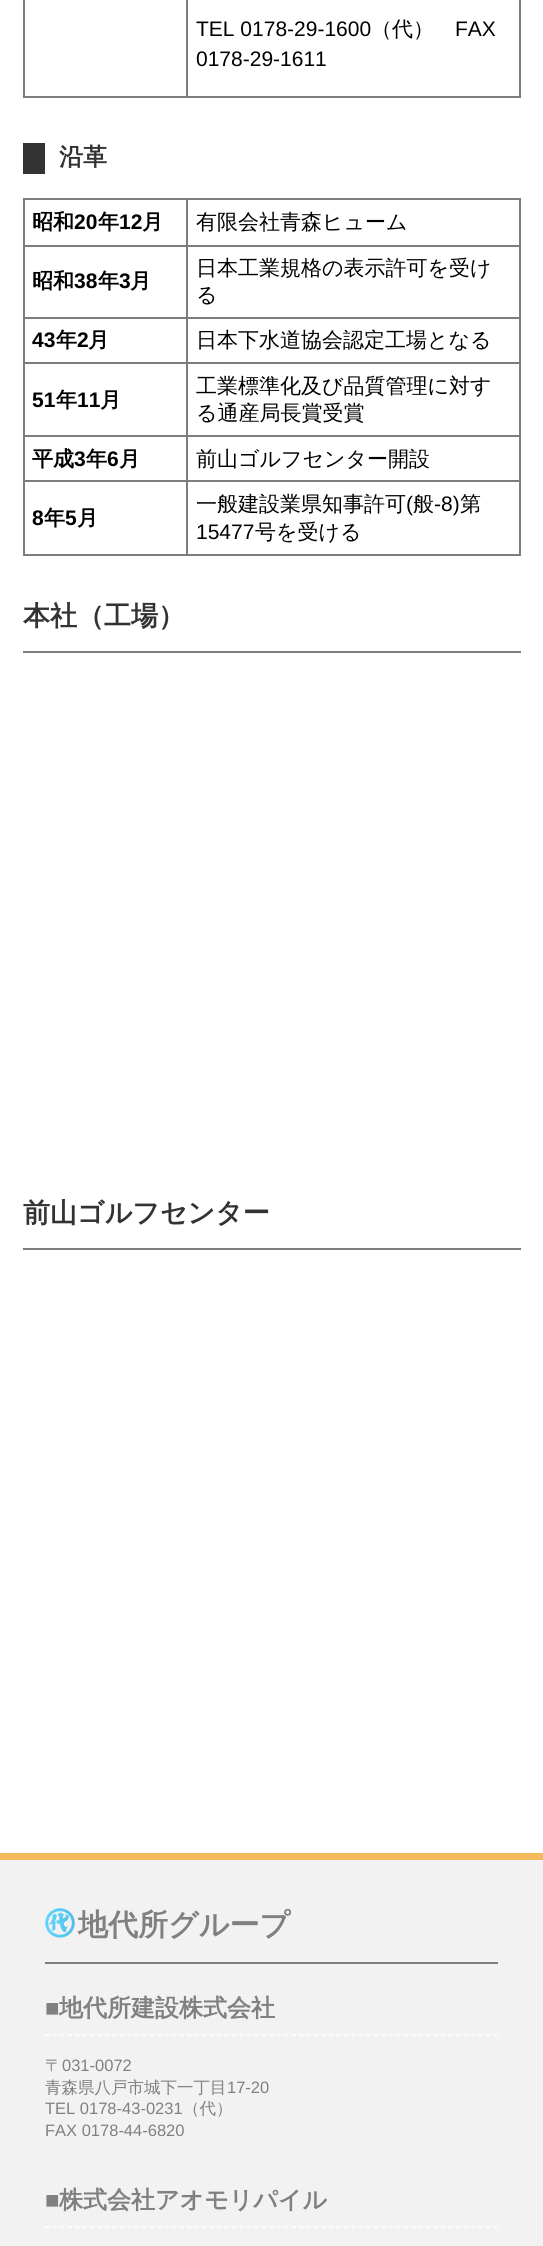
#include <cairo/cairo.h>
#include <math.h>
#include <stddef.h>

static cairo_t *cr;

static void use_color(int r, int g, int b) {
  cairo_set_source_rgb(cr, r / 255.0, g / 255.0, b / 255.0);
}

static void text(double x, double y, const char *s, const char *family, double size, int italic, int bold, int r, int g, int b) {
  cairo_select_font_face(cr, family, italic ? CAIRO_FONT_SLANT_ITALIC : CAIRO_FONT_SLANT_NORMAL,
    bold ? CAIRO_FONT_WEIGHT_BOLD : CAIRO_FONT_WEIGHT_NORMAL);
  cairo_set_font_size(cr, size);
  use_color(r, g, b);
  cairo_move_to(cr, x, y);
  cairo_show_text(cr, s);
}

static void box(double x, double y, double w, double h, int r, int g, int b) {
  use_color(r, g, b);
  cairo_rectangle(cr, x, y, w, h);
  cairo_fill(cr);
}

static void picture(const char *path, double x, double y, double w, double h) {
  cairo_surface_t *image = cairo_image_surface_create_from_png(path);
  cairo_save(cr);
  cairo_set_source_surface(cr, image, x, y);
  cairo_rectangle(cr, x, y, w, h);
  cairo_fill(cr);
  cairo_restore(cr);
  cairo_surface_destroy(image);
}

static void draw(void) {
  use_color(255, 255, 255);
  cairo_paint(cr);
  box(519, 0, 2, 98, 125, 125, 125);
  box(23, 96, 498, 2, 125, 125, 125);
  box(23, 0, 2, 98, 125, 125, 125);
  box(186, 0, 2, 98, 125, 125, 125);
  box(23, 143, 22, 31, 51, 51, 51);
  box(23, 198, 498, 2, 125, 125, 125);
  box(519, 198, 2, 357, 125, 125, 125);
  box(23, 554, 498, 2, 125, 125, 125);
  box(23, 198, 2, 357, 125, 125, 125);
  box(186, 245, 335, 2, 125, 125, 125);
  box(186, 317, 335, 2, 125, 125, 125);
  box(186, 362, 335, 2, 125, 125, 125);
  box(186, 435, 335, 2, 125, 125, 125);
  box(186, 480, 335, 2, 125, 125, 125);
  box(186, 480, 2, 75, 125, 125, 125);
  box(23, 480, 165, 2, 125, 125, 125);
  box(186, 435, 2, 47, 125, 125, 125);
  box(23, 435, 165, 2, 125, 125, 125);
  box(186, 362, 2, 75, 125, 125, 125);
  box(23, 362, 165, 2, 125, 125, 125);
  box(186, 317, 2, 46, 125, 125, 125);
  box(23, 317, 165, 2, 125, 125, 125);
  box(186, 245, 2, 73, 125, 125, 125);
  box(23, 245, 165, 2, 125, 125, 125);
  box(186, 198, 2, 48, 125, 125, 125);
  box(23, 651, 498, 2, 125, 125, 125);
  box(23, 1248, 498, 2, 125, 125, 125);
  box(0, 1860, 543, 386, 242, 242, 242);
  box(0, 1853, 543, 7, 244, 185, 91);
  box(45, 1962, 453, 2, 125, 125, 125);
  picture("img_01.png", 45, 1908, 30, 30);
  cairo_new_path(cr);
  cairo_move_to(cr, 45, 2035);
  cairo_line_to(cr, 498, 2035);
  use_color(255, 255, 255);
  cairo_set_line_width(cr, 1.5);
  cairo_set_dash(cr, (double[]){4.5, 2.97}, 2, 0);
  cairo_stroke(cr);
  cairo_new_path(cr);
  cairo_move_to(cr, 45, 2227);
  cairo_line_to(cr, 498, 2227);
  cairo_stroke(cr);
  text(196, 36, "TEL 0178-29-1600", "Liberation Sans", 21, 0, 0, 0, 0, 0);
  text(371, 36, "（代）", "WenQuanYi Zen Hei Medium", 21, 0, 0, 0, 0, 0);
  text(455, 36, "FAX", "Liberation Sans", 21, 0, 0, 0, 0, 0);
  text(196, 66, "0178-29-1611", "Liberation Sans", 21, 0, 0, 0, 0, 0);
  text(59, 165, "沿革", "WenQuanYi Zen Hei", 24, 0, 1, 51, 51, 51);
  text(32, 229, "昭和", "WenQuanYi Zen Hei", 21, 0, 1, 0, 0, 0);
  text(74, 229, "20", "Liberation Sans", 21, 0, 1, 0, 0, 0);
  text(98, 229, "年", "WenQuanYi Zen Hei", 21, 0, 1, 0, 0, 0);
  text(119, 229, "12", "Liberation Sans", 21, 0, 1, 0, 0, 0);
  text(142, 229, "月", "WenQuanYi Zen Hei", 21, 0, 1, 0, 0, 0);
  text(196, 229, "有限会社青森ヒューム", "WenQuanYi Zen Hei Medium", 21, 0, 0, 0, 0, 0);
  text(32, 288, "昭和", "WenQuanYi Zen Hei", 21, 0, 1, 0, 0, 0);
  text(74, 288, "38", "Liberation Sans", 21, 0, 1, 0, 0, 0);
  text(98, 288, "年", "WenQuanYi Zen Hei", 21, 0, 1, 0, 0, 0);
  text(119, 288, "3", "Liberation Sans", 21, 0, 1, 0, 0, 0);
  text(130, 288, "月", "WenQuanYi Zen Hei", 21, 0, 1, 0, 0, 0);
  text(196, 275, "日本工業規格の表示許可を受け", "WenQuanYi Zen Hei Medium", 21, 0, 0, 0, 0, 0);
  text(196, 302, "る", "WenQuanYi Zen Hei Medium", 21, 0, 0, 0, 0, 0);
  text(32, 347, "43", "Liberation Sans", 21, 0, 1, 0, 0, 0);
  text(56, 347, "年", "WenQuanYi Zen Hei", 21, 0, 1, 0, 0, 0);
  text(77, 347, "2", "Liberation Sans", 21, 0, 1, 0, 0, 0);
  text(88, 347, "月", "WenQuanYi Zen Hei", 21, 0, 1, 0, 0, 0);
  text(196, 347, "日本下水道協会認定工場となる", "WenQuanYi Zen Hei Medium", 21, 0, 0, 0, 0, 0);
  text(32, 407, "51", "Liberation Sans", 21, 0, 1, 0, 0, 0);
  text(56, 407, "年", "WenQuanYi Zen Hei", 21, 0, 1, 0, 0, 0);
  text(77, 407, "11", "Liberation Sans", 21, 0, 1, 0, 0, 0);
  text(100, 407, "月", "WenQuanYi Zen Hei", 21, 0, 1, 0, 0, 0);
  text(196, 393, "工業標準化及び品質管理に対す", "WenQuanYi Zen Hei Medium", 21, 0, 0, 0, 0, 0);
  text(196, 420, "る通産局長賞受賞", "WenQuanYi Zen Hei Medium", 21, 0, 0, 0, 0, 0);
  text(32, 466, "平成", "WenQuanYi Zen Hei", 21, 0, 1, 0, 0, 0);
  text(74, 466, "3", "Liberation Sans", 21, 0, 1, 0, 0, 0);
  text(86, 466, "年", "WenQuanYi Zen Hei", 21, 0, 1, 0, 0, 0);
  text(107, 466, "6", "Liberation Sans", 21, 0, 1, 0, 0, 0);
  text(119, 466, "月", "WenQuanYi Zen Hei", 21, 0, 1, 0, 0, 0);
  text(196, 466, "前山ゴルフセンター開設", "WenQuanYi Zen Hei Medium", 21, 0, 0, 0, 0, 0);
  text(32, 525, "8", "Liberation Sans", 21, 0, 1, 0, 0, 0);
  text(44, 525, "年", "WenQuanYi Zen Hei", 21, 0, 1, 0, 0, 0);
  text(65, 525, "5", "Liberation Sans", 21, 0, 1, 0, 0, 0);
  text(77, 525, "月", "WenQuanYi Zen Hei", 21, 0, 1, 0, 0, 0);
  text(196, 511, "一般建設業県知事許可", "WenQuanYi Zen Hei Medium", 21, 0, 0, 0, 0, 0);
  text(406, 511, "(", "Liberation Sans", 21, 0, 0, 0, 0, 0);
  text(413, 511, "般", "WenQuanYi Zen Hei Medium", 21, 0, 0, 0, 0, 0);
  text(434, 511, "-8)", "Liberation Sans", 21, 0, 0, 0, 0, 0);
  text(460, 511, "第", "WenQuanYi Zen Hei Medium", 21, 0, 0, 0, 0, 0);
  text(196, 539, "15477", "Liberation Sans", 21, 0, 0, 0, 0, 0);
  text(255, 539, "号を受ける", "WenQuanYi Zen Hei Medium", 21, 0, 0, 0, 0, 0);
  text(23, 625, "本社（工場）", "WenQuanYi Zen Hei", 27, 0, 1, 51, 51, 51);
  text(23, 1222, "前山ゴルフセンター", "WenQuanYi Zen Hei", 27, 0, 1, 51, 51, 51);
  text(78, 1935, "地代所グループ", "WenQuanYi Zen Hei", 30, 0, 1, 128, 128, 128);
  text(45, 2016, "■", "Liberation Sans", 24, 0, 1, 128, 128, 128);
  text(59, 2016, "地代所建設株式会社", "WenQuanYi Zen Hei", 24, 0, 1, 128, 128, 128);
  text(45, 2071, "〒", "WenQuanYi Zen Hei Medium", 16.5, 0, 0, 128, 128, 128);
  text(62, 2071, "031‐0072", "Liberation Sans", 16.5, 0, 0, 128, 128, 128);
  text(45, 2093, "青森県八戸市城下一丁目", "WenQuanYi Zen Hei Medium", 16.5, 0, 0, 128, 128, 128);
  text(227, 2093, "17‐20", "Liberation Sans", 16.5, 0, 0, 128, 128, 128);
  text(45, 2114, "TEL 0178-43-0231", "Liberation Sans", 16.5, 0, 0, 128, 128, 128);
  text(183, 2114, "（代）", "WenQuanYi Zen Hei Medium", 16.5, 0, 0, 128, 128, 128);
  text(45, 2136, "FAX 0178-44-6820", "Liberation Sans", 16.5, 0, 0, 128, 128, 128);
  text(45, 2208, "■", "Liberation Sans", 24, 0, 1, 128, 128, 128);
  text(59, 2208, "株式会社アオモリパイル", "WenQuanYi Zen Hei", 24, 0, 1, 128, 128, 128);
}

int main(void) {
  cairo_surface_t *surface = cairo_image_surface_create(CAIRO_FORMAT_RGB24, 543, 2246);
  cr = cairo_create(surface);
  cairo_font_options_t *options = cairo_font_options_create();
  cairo_font_options_set_hint_metrics(options, CAIRO_HINT_METRICS_OFF);
  cairo_font_options_set_hint_style(options, CAIRO_HINT_STYLE_NONE);
  cairo_set_font_options(cr, options);
  cairo_set_miter_limit(cr, 4);
  draw();
  cairo_surface_write_to_png(surface, "out.png");
  cairo_font_options_destroy(options);
  cairo_destroy(cr);
  cairo_surface_destroy(surface);
  return 0;
}
